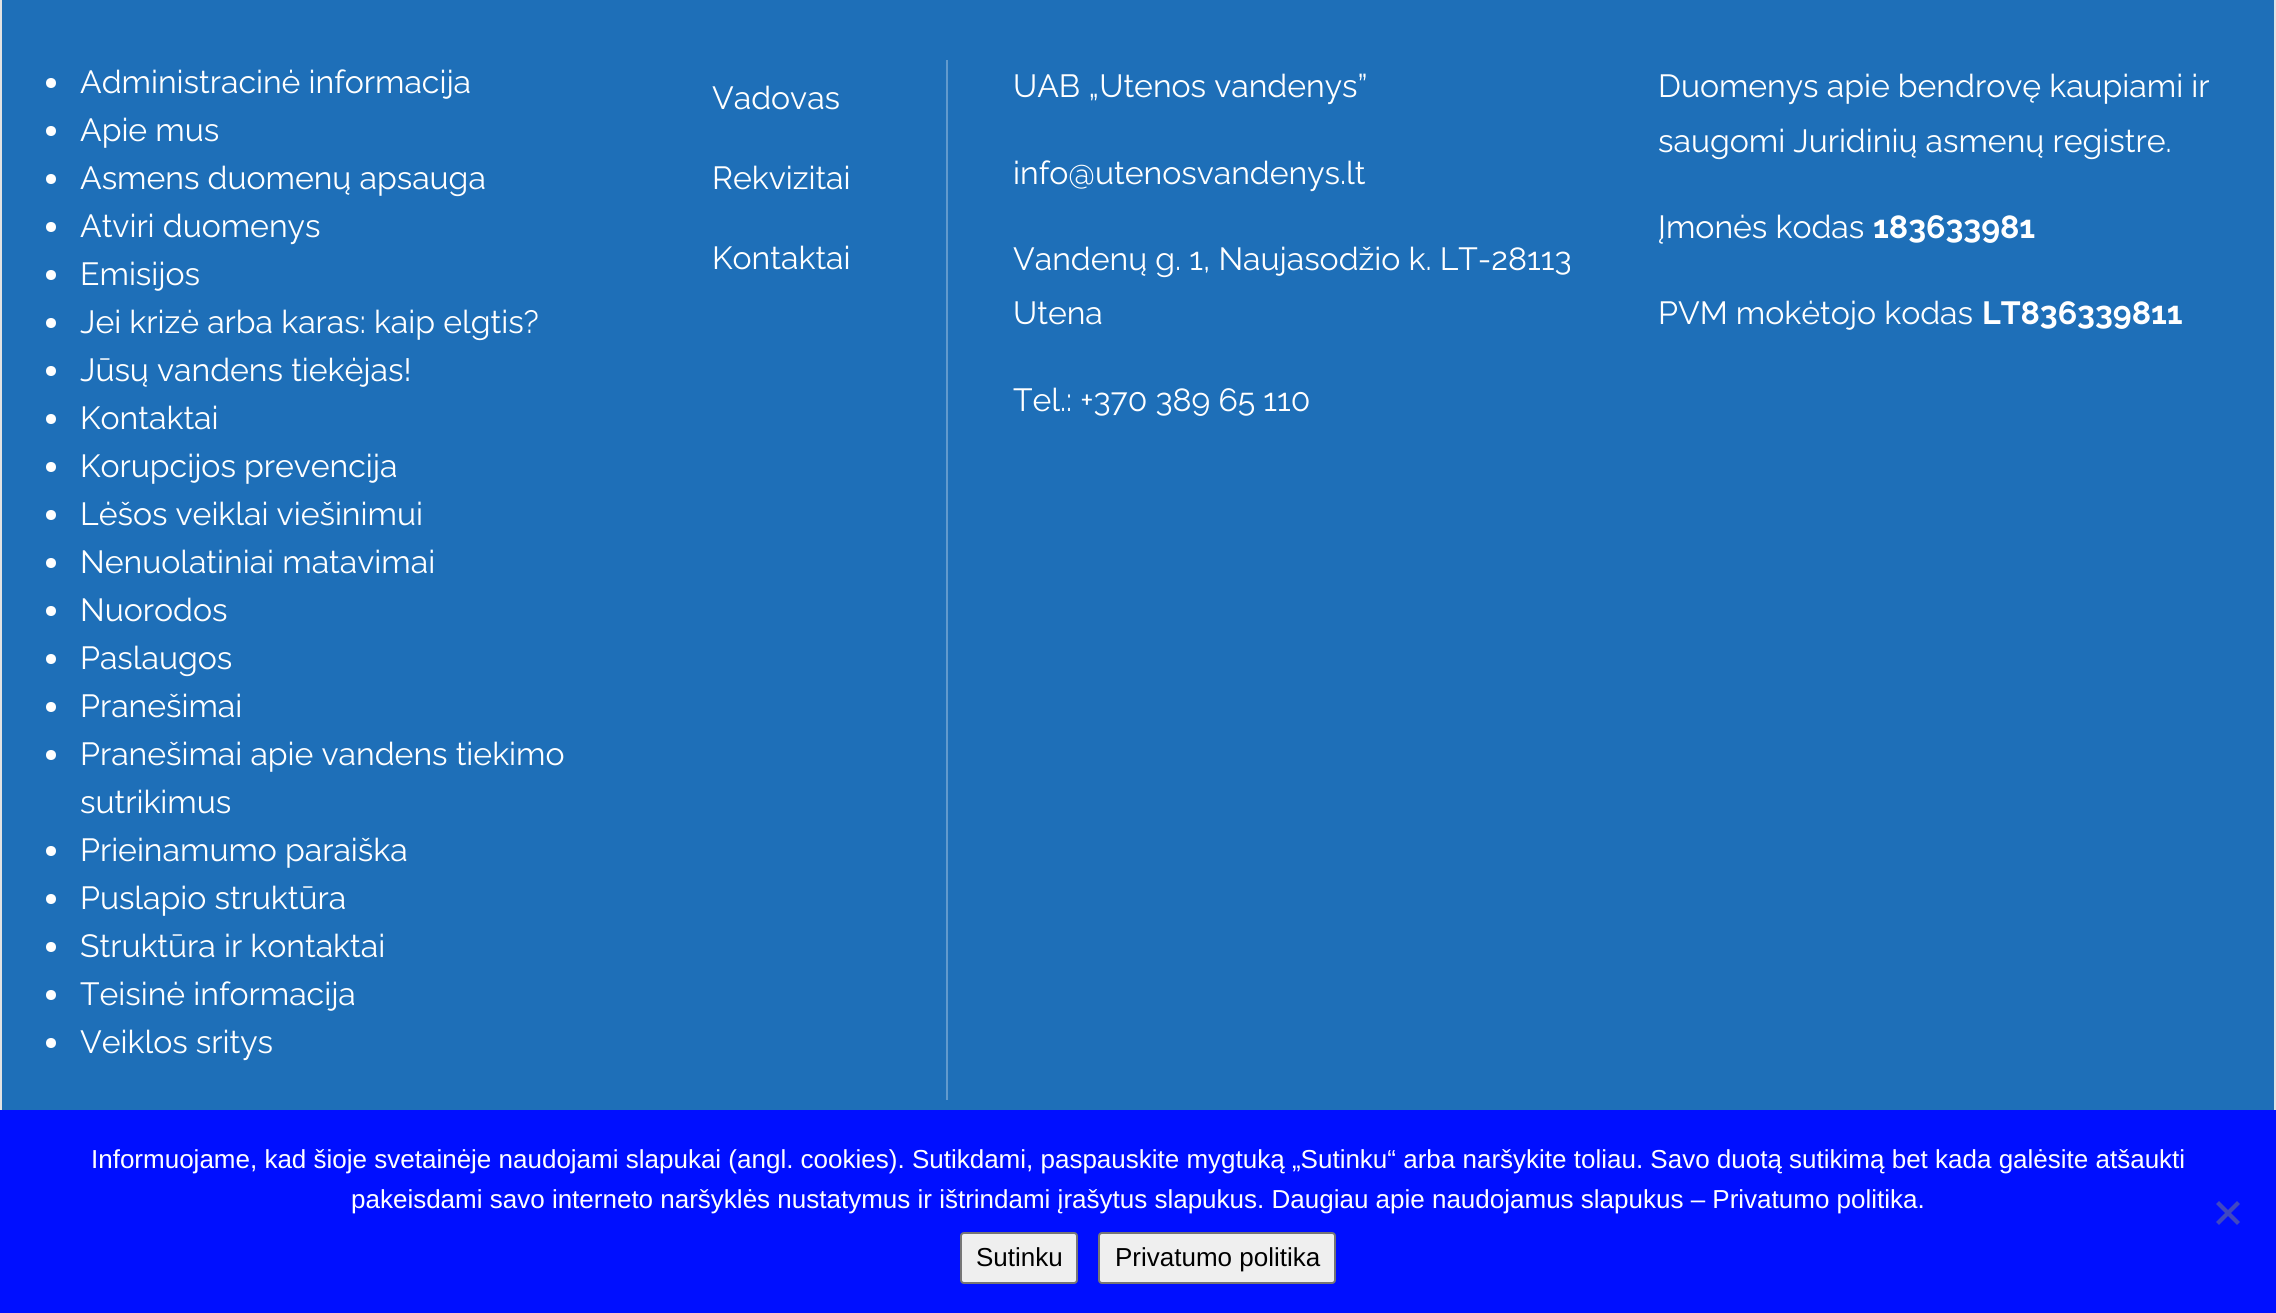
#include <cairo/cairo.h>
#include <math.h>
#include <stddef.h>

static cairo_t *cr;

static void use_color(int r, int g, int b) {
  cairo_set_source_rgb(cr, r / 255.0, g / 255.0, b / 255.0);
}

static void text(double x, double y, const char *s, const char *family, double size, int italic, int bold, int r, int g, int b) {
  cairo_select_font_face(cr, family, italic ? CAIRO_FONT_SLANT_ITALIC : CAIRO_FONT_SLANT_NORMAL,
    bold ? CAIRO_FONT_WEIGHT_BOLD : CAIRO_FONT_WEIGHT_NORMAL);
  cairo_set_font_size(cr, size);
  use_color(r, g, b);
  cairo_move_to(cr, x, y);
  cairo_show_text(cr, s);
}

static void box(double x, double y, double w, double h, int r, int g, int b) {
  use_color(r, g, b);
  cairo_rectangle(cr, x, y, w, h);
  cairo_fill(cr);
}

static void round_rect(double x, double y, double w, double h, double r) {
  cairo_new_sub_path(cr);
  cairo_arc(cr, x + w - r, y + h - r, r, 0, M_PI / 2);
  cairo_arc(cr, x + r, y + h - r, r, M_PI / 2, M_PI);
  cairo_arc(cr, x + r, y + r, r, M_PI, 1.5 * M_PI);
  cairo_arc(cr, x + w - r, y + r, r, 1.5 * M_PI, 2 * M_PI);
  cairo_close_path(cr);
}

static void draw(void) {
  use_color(227, 227, 227);
  cairo_paint(cr);
  box(2, 0, 2272, 1110, 30, 111, 184);
  box(946, 60, 2, 1040, 98, 154, 205);
  use_color(255, 255, 255);
  cairo_arc(cr, 51, 83, 5, 0, 2 * M_PI);
  cairo_fill(cr);
  cairo_arc(cr, 51, 131, 5, 0, 2 * M_PI);
  cairo_fill(cr);
  cairo_arc(cr, 51, 179, 5, 0, 2 * M_PI);
  cairo_fill(cr);
  cairo_arc(cr, 51, 227, 5, 0, 2 * M_PI);
  cairo_fill(cr);
  cairo_arc(cr, 51, 275, 5, 0, 2 * M_PI);
  cairo_fill(cr);
  cairo_arc(cr, 51, 323, 5, 0, 2 * M_PI);
  cairo_fill(cr);
  cairo_arc(cr, 51, 371, 5, 0, 2 * M_PI);
  cairo_fill(cr);
  cairo_arc(cr, 51, 419, 5, 0, 2 * M_PI);
  cairo_fill(cr);
  cairo_arc(cr, 51, 467, 5, 0, 2 * M_PI);
  cairo_fill(cr);
  cairo_arc(cr, 51, 515, 5, 0, 2 * M_PI);
  cairo_fill(cr);
  cairo_arc(cr, 51, 563, 5, 0, 2 * M_PI);
  cairo_fill(cr);
  cairo_arc(cr, 51, 611, 5, 0, 2 * M_PI);
  cairo_fill(cr);
  cairo_arc(cr, 51, 659, 5, 0, 2 * M_PI);
  cairo_fill(cr);
  cairo_arc(cr, 51, 707, 5, 0, 2 * M_PI);
  cairo_fill(cr);
  cairo_arc(cr, 51, 755, 5, 0, 2 * M_PI);
  cairo_fill(cr);
  cairo_arc(cr, 51, 851, 5, 0, 2 * M_PI);
  cairo_fill(cr);
  cairo_arc(cr, 51, 899, 5, 0, 2 * M_PI);
  cairo_fill(cr);
  cairo_arc(cr, 51, 947, 5, 0, 2 * M_PI);
  cairo_fill(cr);
  cairo_arc(cr, 51, 995, 5, 0, 2 * M_PI);
  cairo_fill(cr);
  cairo_arc(cr, 51, 1043, 5, 0, 2 * M_PI);
  cairo_fill(cr);
  box(0, 1110, 2276, 203, 0, 15, 255);
  use_color(64, 72, 192);
  cairo_new_path(cr);
  cairo_move_to(cr, 2237, 1201);
  cairo_line_to(cr, 2240, 1204);
  cairo_line_to(cr, 2219, 1225);
  cairo_line_to(cr, 2216, 1222);
  cairo_close_path(cr);
  cairo_fill(cr);
  cairo_new_path(cr);
  cairo_move_to(cr, 2216, 1204);
  cairo_line_to(cr, 2219, 1201);
  cairo_line_to(cr, 2240, 1222);
  cairo_line_to(cr, 2237, 1225);
  cairo_close_path(cr);
  cairo_fill(cr);
  use_color(239, 239, 239);
  round_rect(961, 1233, 116, 50, 3);
  cairo_fill_preserve(cr);
  use_color(118, 118, 118);
  cairo_stroke(cr);
  use_color(239, 239, 239);
  round_rect(1099, 1233, 236, 50, 3);
  cairo_fill_preserve(cr);
  use_color(118, 118, 118);
  cairo_stroke(cr);
  text(80, 93, "Administracinė informacija", "Raleway", 32, 0, 0, 255, 255, 255);
  text(80, 141, "Apie mus", "Raleway", 32, 0, 0, 255, 255, 255);
  text(80, 189, "Asmens duomenų apsauga", "Raleway", 32, 0, 0, 255, 255, 255);
  text(80, 237, "Atviri duomenys", "Raleway", 32, 0, 0, 255, 255, 255);
  text(80, 285, "Emisijos", "Raleway", 32, 0, 0, 255, 255, 255);
  text(80, 333, "Jei krizė arba karas: kaip elgtis?", "Raleway", 32, 0, 0, 255, 255, 255);
  text(80, 381, "Jūsų vandens tiekėjas!", "Raleway", 32, 0, 0, 255, 255, 255);
  text(80, 429, "Kontaktai", "Raleway", 32, 0, 0, 255, 255, 255);
  text(80, 477, "Korupcijos prevencija", "Raleway", 32, 0, 0, 255, 255, 255);
  text(80, 525, "Lėšos veiklai viešinimui", "Raleway", 32, 0, 0, 255, 255, 255);
  text(80, 573, "Nenuolatiniai matavimai", "Raleway", 32, 0, 0, 255, 255, 255);
  text(80, 621, "Nuorodos", "Raleway", 32, 0, 0, 255, 255, 255);
  text(80, 669, "Paslaugos", "Raleway", 32, 0, 0, 255, 255, 255);
  text(80, 717, "Pranešimai", "Raleway", 32, 0, 0, 255, 255, 255);
  text(80, 765, "Pranešimai apie vandens tiekimo", "Raleway", 32, 0, 0, 255, 255, 255);
  text(80, 813, "sutrikimus", "Raleway", 32, 0, 0, 255, 255, 255);
  text(80, 861, "Prieinamumo paraiška", "Raleway", 32, 0, 0, 255, 255, 255);
  text(80, 909, "Puslapio struktūra", "Raleway", 32, 0, 0, 255, 255, 255);
  text(80, 957, "Struktūra ir kontaktai", "Raleway", 32, 0, 0, 255, 255, 255);
  text(80, 1005, "Teisinė informacija", "Raleway", 32, 0, 0, 255, 255, 255);
  text(80, 1053, "Veiklos sritys", "Raleway", 32, 0, 0, 255, 255, 255);
  text(712, 109, "Vadovas", "Raleway", 32, 0, 0, 255, 255, 255);
  text(712, 189, "Rekvizitai", "Raleway", 32, 0, 0, 255, 255, 255);
  text(712, 269, "Kontaktai", "Raleway", 32, 0, 0, 255, 255, 255);
  text(1013, 97, "UAB „Utenos vandenys”", "Raleway", 32, 0, 0, 255, 255, 255);
  text(1013, 184, "info@utenosvandenys.lt", "Raleway", 32, 0, 0, 255, 255, 255);
  text(1013, 270, "Vandenų g. 1, Naujasodžio k. LT-28113", "Raleway", 32, 0, 0, 255, 255, 255);
  text(1013, 324, "Utena", "Raleway", 32, 0, 0, 255, 255, 255);
  text(1013, 411, "Tel.: +370 389 65 110", "Raleway", 32, 0, 0, 255, 255, 255);
  text(1658, 97, "Duomenys apie bendrovę kaupiami ir", "Raleway", 32, 0, 0, 255, 255, 255);
  text(1658, 152, "saugomi Juridinių asmenų registre.", "Raleway", 32, 0, 0, 255, 255, 255);
  text(1658, 238, "Įmonės kodas", "Raleway", 32, 0, 0, 255, 255, 255);
  text(1873, 238, "183633981", "Raleway", 32, 0, 1, 255, 255, 255);
  text(1658, 324, "PVM mokėtojo kodas", "Raleway", 32, 0, 0, 255, 255, 255);
  text(1982, 324, "LT836339811", "Raleway", 32, 0, 1, 255, 255, 255);
  text(91, 1168, "Informuojame, kad šioje svetainėje naudojami slapukai (angl. cookies). Sutikdami, paspauskite mygtuką „Sutinku“ arba naršykite toliau. Savo duotą sutikimą bet kada galėsite atšaukti", "Liberation Sans", 26, 0, 0, 255, 255, 255);
  text(351, 1208, "pakeisdami savo interneto naršyklės nustatymus ir ištrindami įrašytus slapukus. Daugiau apie naudojamus slapukus – Privatumo politika.", "Liberation Sans", 26, 0, 0, 255, 255, 255);
  text(976, 1266, "Sutinku", "Liberation Sans", 26, 0, 0, 0, 0, 0);
  text(1115, 1266, "Privatumo politika", "Liberation Sans", 26, 0, 0, 0, 0, 0);
}

int main(void) {
  cairo_surface_t *surface = cairo_image_surface_create(CAIRO_FORMAT_RGB24, 2276, 1313);
  cr = cairo_create(surface);
  cairo_font_options_t *options = cairo_font_options_create();
  cairo_font_options_set_hint_metrics(options, CAIRO_HINT_METRICS_OFF);
  cairo_font_options_set_hint_style(options, CAIRO_HINT_STYLE_NONE);
  cairo_set_font_options(cr, options);
  cairo_set_miter_limit(cr, 4);
  draw();
  cairo_surface_write_to_png(surface, "out.png");
  cairo_font_options_destroy(options);
  cairo_destroy(cr);
  cairo_surface_destroy(surface);
  return 0;
}
